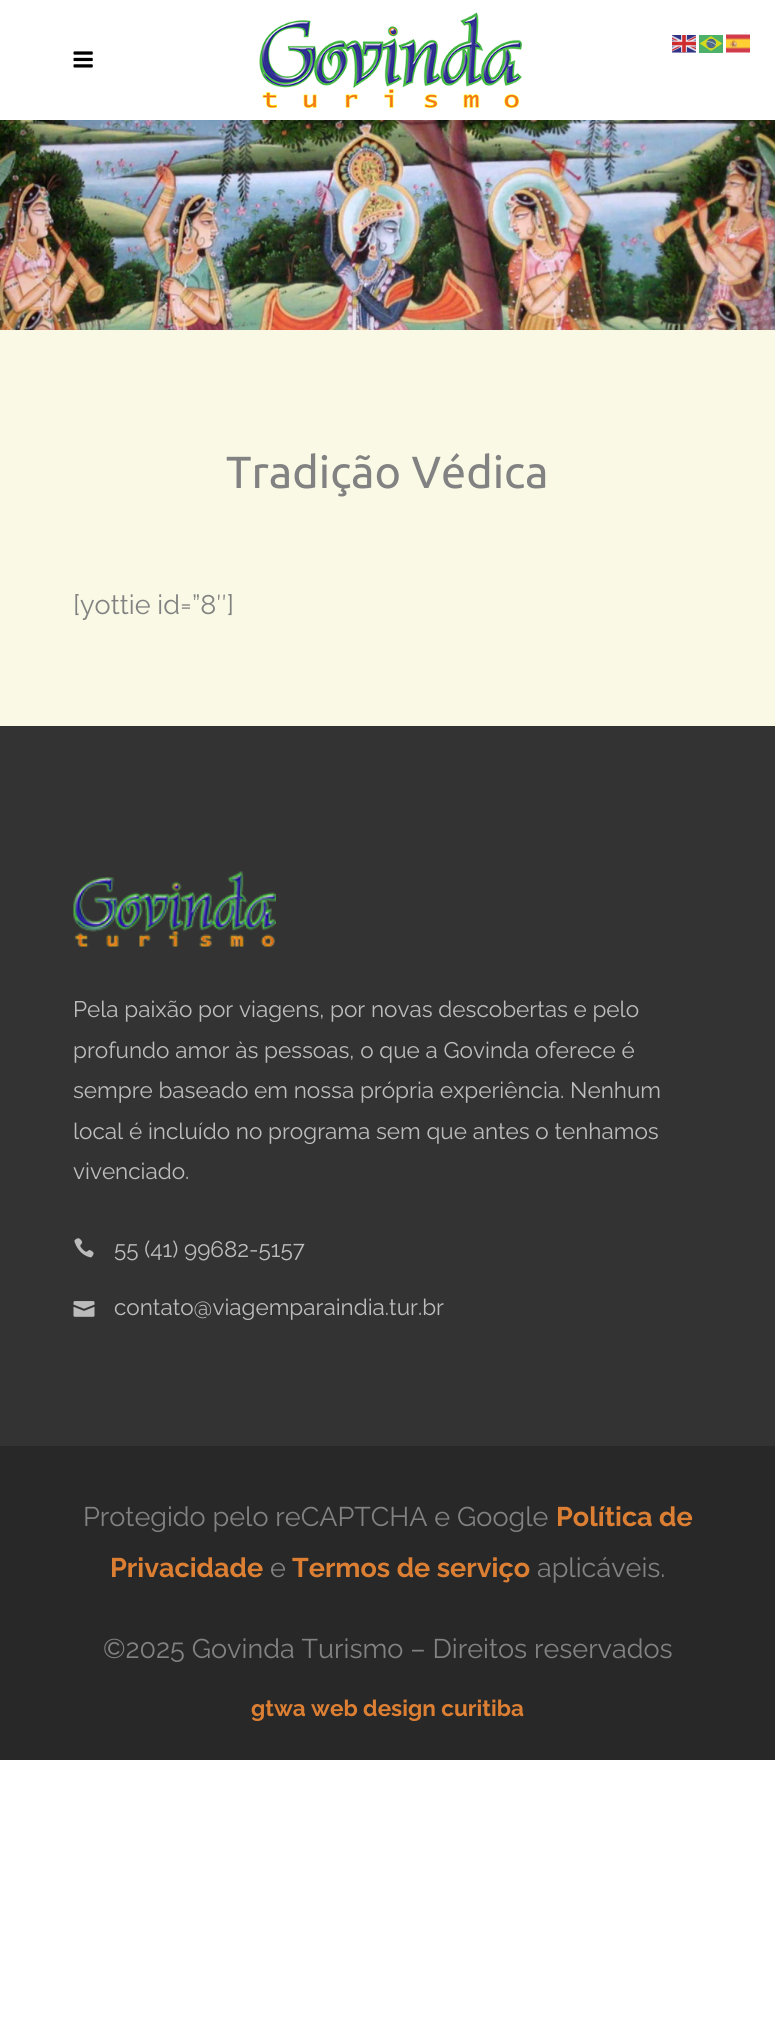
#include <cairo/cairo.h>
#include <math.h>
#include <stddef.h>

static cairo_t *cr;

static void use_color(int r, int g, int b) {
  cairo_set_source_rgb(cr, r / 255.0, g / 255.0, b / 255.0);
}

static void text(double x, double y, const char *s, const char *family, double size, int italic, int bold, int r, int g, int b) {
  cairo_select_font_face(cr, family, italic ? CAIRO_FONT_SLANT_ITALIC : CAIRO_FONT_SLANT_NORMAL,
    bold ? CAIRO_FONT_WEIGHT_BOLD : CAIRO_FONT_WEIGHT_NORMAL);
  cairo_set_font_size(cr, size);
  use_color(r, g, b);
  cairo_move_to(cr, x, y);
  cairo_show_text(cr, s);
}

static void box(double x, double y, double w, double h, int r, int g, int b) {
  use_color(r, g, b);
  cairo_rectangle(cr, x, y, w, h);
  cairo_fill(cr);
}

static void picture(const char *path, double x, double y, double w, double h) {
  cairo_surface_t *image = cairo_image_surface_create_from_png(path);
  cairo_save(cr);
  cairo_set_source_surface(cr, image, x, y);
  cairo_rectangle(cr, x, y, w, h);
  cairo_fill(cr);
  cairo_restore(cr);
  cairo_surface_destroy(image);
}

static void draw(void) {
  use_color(255, 255, 255);
  cairo_paint(cr);
  picture("img_01.png", 672, 35, 24, 18);
  picture("img_02.png", 699, 35, 24, 18);
  picture("img_03.png", 726, 34, 24, 19);
  box(0, 330, 775, 396, 249, 249, 229);
  picture("img_04.png", 73, 51, 20, 17);
  picture("img_05.png", 259, 12, 263, 96);
  picture("img_06.png", 0, 120, 775, 210);
  box(0, 726, 775, 720, 51, 51, 51);
  picture("img_07.png", 73, 871, 203, 76);
  picture("img_08.png", 74, 1238, 20, 20);
  picture("img_09.png", 73, 1301, 22, 16);
  box(0, 1446, 775, 314, 40, 40, 40);
  text(226, 488, "Tradição Védica", "Ubuntu", 45, 0, 0, 130, 130, 130);
  text(73, 614, "[yottie id=”8″]", "Raleway", 27, 0, 0, 130, 130, 130);
  text(73, 1017, "Pela paixão por viagens, por novas descobertas e pelo", "Raleway", 22.5, 0, 0, 189, 189, 189);
  text(73, 1058, "profundo amor às pessoas, o que a Govinda oferece é", "Raleway", 22.5, 0, 0, 189, 189, 189);
  text(73, 1098, "sempre baseado em nossa própria experiência. Nenhum", "Raleway", 22.5, 0, 0, 189, 189, 189);
  text(73, 1139, "local é incluído no programa sem que antes o tenhamos", "Raleway", 22.5, 0, 0, 189, 189, 189);
  text(73, 1179, "vivenciado.", "Raleway", 22.5, 0, 0, 189, 189, 189);
  text(114, 1257, "55 (41) 99682-5157", "Raleway", 22.5, 0, 0, 189, 189, 189);
  text(114, 1315, "contato@viagemparaindia.tur.br", "Raleway", 22.5, 0, 0, 189, 189, 189);
  text(83, 1526, "Protegido pelo reCAPTCHA e Google", "Raleway", 27, 0, 0, 130, 130, 130);
  text(556, 1526, "Política de", "Raleway", 27, 0, 1, 221, 127, 51);
  text(110, 1577, "Privacidade", "Raleway", 27, 0, 1, 221, 127, 51);
  text(270, 1577, "e", "Raleway", 27, 0, 0, 130, 130, 130);
  text(292, 1577, "Termos de serviço", "Raleway", 27, 0, 1, 221, 127, 51);
  text(537, 1577, "aplicáveis.", "Raleway", 27, 0, 0, 130, 130, 130);
  text(103, 1658, "©2025 Govinda Turismo – Direitos reservados", "Raleway", 27, 0, 0, 130, 130, 130);
  text(251, 1716, "gtwa web design curitiba", "Raleway", 22.5, 0, 1, 221, 127, 51);
}

int main(void) {
  cairo_surface_t *surface = cairo_image_surface_create(CAIRO_FORMAT_RGB24, 775, 2035);
  cr = cairo_create(surface);
  cairo_font_options_t *options = cairo_font_options_create();
  cairo_font_options_set_hint_metrics(options, CAIRO_HINT_METRICS_OFF);
  cairo_font_options_set_hint_style(options, CAIRO_HINT_STYLE_NONE);
  cairo_set_font_options(cr, options);
  cairo_set_miter_limit(cr, 4);
  draw();
  cairo_surface_write_to_png(surface, "out.png");
  cairo_font_options_destroy(options);
  cairo_destroy(cr);
  cairo_surface_destroy(surface);
  return 0;
}
